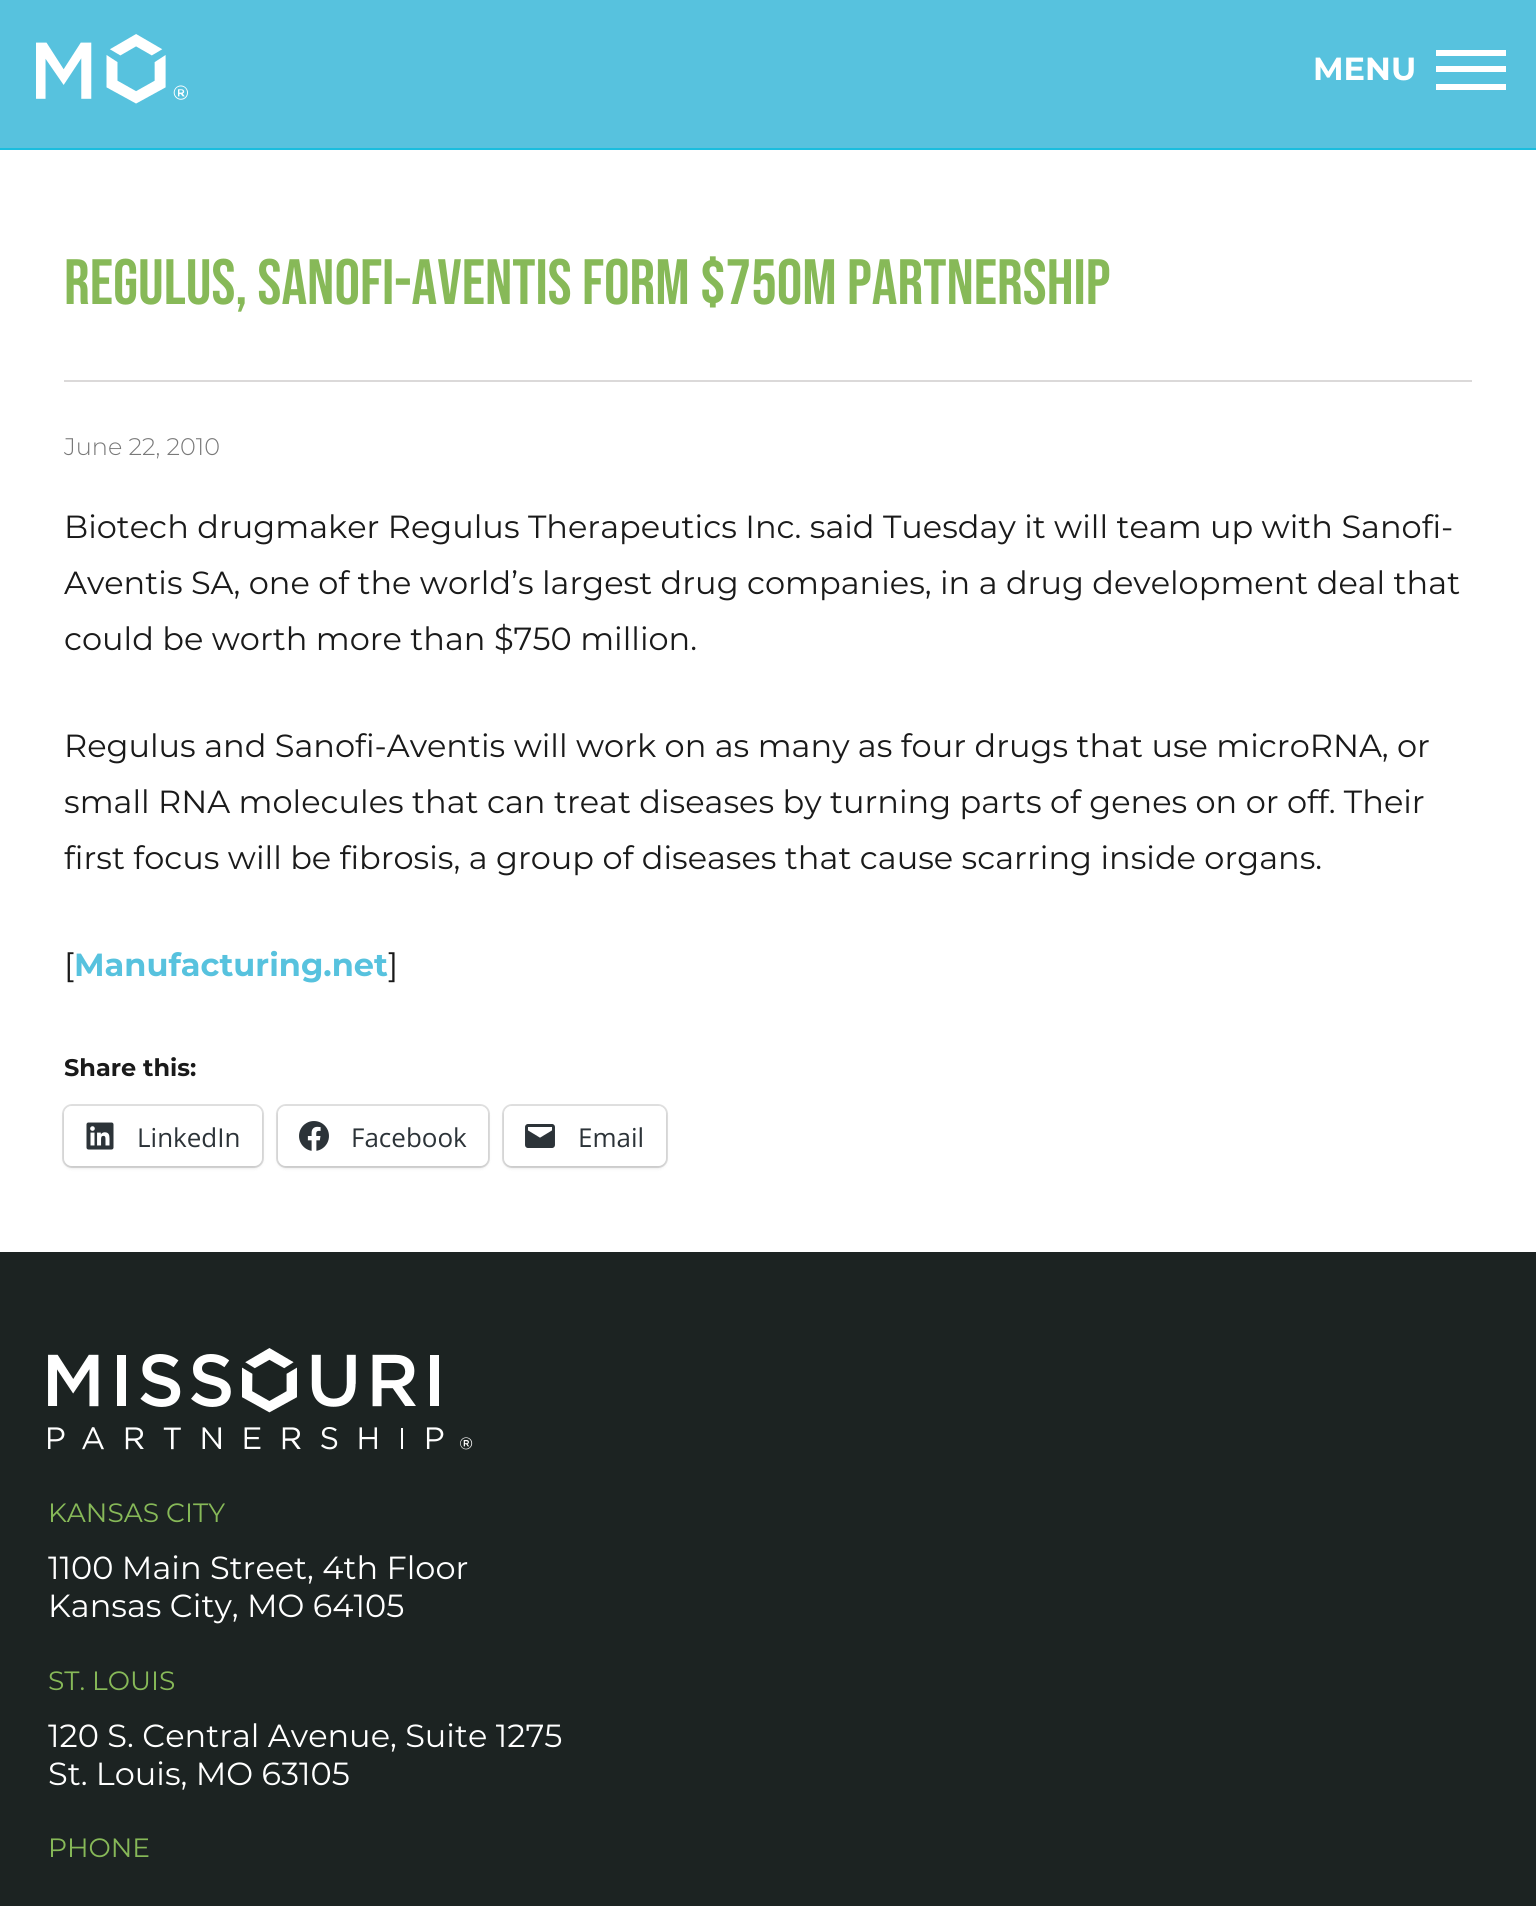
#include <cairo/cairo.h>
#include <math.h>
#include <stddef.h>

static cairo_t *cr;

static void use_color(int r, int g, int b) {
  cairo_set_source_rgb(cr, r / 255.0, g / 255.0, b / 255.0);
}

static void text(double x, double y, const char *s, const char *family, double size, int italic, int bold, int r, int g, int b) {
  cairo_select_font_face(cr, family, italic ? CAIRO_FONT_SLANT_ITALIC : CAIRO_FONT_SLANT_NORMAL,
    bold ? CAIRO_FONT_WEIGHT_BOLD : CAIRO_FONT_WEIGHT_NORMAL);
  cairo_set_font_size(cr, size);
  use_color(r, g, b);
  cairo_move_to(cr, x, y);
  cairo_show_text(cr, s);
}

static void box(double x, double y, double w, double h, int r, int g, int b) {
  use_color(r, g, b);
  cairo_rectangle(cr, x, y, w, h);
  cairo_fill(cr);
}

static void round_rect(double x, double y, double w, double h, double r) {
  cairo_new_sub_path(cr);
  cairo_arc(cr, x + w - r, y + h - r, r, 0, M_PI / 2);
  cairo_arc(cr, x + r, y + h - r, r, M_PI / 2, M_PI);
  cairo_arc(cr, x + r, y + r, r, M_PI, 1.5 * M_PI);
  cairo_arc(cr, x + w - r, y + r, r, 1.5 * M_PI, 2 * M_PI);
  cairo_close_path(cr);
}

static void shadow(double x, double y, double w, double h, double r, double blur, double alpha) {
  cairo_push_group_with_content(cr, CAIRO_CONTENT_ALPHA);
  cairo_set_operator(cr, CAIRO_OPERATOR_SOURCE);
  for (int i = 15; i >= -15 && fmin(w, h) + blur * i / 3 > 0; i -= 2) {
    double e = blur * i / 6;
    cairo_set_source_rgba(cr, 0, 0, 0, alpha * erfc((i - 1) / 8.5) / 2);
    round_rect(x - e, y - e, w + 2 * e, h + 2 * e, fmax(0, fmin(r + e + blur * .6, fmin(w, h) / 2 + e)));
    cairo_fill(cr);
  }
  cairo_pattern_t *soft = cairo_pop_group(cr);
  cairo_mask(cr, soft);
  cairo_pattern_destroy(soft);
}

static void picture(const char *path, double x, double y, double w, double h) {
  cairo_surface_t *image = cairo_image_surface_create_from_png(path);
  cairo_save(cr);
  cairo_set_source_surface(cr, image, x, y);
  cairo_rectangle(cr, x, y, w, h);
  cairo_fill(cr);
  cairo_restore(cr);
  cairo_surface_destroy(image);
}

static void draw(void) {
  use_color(255, 255, 255);
  cairo_paint(cr);
  box(0, 0, 1536, 148, 87, 194, 222);
  picture("img_01.png", 36, 34, 152, 70);
  box(1436, 50, 70, 6, 255, 255, 255);
  box(1436, 66, 70, 6, 255, 255, 255);
  box(1436, 84, 70, 6, 255, 255, 255);
  box(0, 148, 1536, 2, 26, 189, 222);
  box(64, 380, 1408, 2, 219, 217, 217);
  round_rect(63, 1105, 200, 62, 9);
  use_color(224, 224, 224);
  cairo_stroke(cr);
  use_color(0, 0, 0);
  shadow(64, 1108, 198, 60, 8, 2, 0.12);
  use_color(255, 255, 255);
  round_rect(64, 1106, 198, 60, 8);
  cairo_fill(cr);
  picture("img_02.png", 86, 1122, 28, 28);
  round_rect(277, 1105, 212, 62, 9);
  use_color(224, 224, 224);
  cairo_stroke(cr);
  use_color(0, 0, 0);
  shadow(278, 1108, 210, 60, 8, 2, 0.12);
  use_color(255, 255, 255);
  round_rect(278, 1106, 210, 60, 8);
  cairo_fill(cr);
  picture("img_03.png", 299, 1121, 30, 30);
  round_rect(503, 1105, 164, 62, 9);
  use_color(224, 224, 224);
  cairo_stroke(cr);
  use_color(0, 0, 0);
  shadow(504, 1108, 162, 60, 8, 2, 0.12);
  use_color(255, 255, 255);
  round_rect(504, 1106, 162, 60, 8);
  cairo_fill(cr);
  picture("img_04.png", 525, 1124, 30, 24);
  box(0, 1252, 1536, 654, 28, 35, 34);
  picture("img_05.png", 48, 1348, 425, 102);
  text(1313, 80, "MENU", "Montserrat", 32, 0, 1, 255, 255, 255);
  text(64, 304, "REGULUS, SANOFI-AVENTIS FORM $750M PARTNERSHIP", "Bebas Neue", 64, 0, 0, 135, 185, 88);
  text(64, 455, "June 22, 2010", "Montserrat Light", 24, 0, 0, 121, 121, 121);
  text(64, 538, "Biotech drugmaker Regulus Therapeutics Inc. said Tuesday it will team up with Sanofi-", "Montserrat", 32, 0, 0, 26, 26, 26);
  text(64, 594, "Aventis SA, one of the world’s largest drug companies, in a drug development deal that", "Montserrat", 32, 0, 0, 26, 26, 26);
  text(64, 650, "could be worth more than $750 million.", "Montserrat", 32, 0, 0, 26, 26, 26);
  text(64, 757, "Regulus and Sanofi-Aventis will work on as many as four drugs that use microRNA, or", "Montserrat", 32, 0, 0, 26, 26, 26);
  text(64, 813, "small RNA molecules that can treat diseases by turning parts of genes on or off. Their", "Montserrat", 32, 0, 0, 26, 26, 26);
  text(64, 869, "first focus will be fibrosis, a group of diseases that cause scarring inside organs.", "Montserrat", 32, 0, 0, 26, 26, 26);
  text(64, 976, "[", "Montserrat", 32, 0, 0, 26, 26, 26);
  text(74, 976, "Manufacturing.net", "Montserrat", 32, 0, 1, 87, 194, 222);
  text(388, 976, "]", "Montserrat", 32, 0, 0, 26, 26, 26);
  text(64, 1076, "Share this:", "Montserrat", 24, 0, 1, 26, 26, 26);
  text(137, 1147, "LinkedIn", "Open Sans", 26, 0, 0, 44, 51, 56);
  text(351, 1147, "Facebook", "Open Sans", 26, 0, 0, 44, 51, 56);
  text(578, 1147, "Email", "Open Sans", 26, 0, 0, 44, 51, 56);
  text(48, 1522, "KANSAS CITY", "Montserrat", 26.5, 0, 0, 135, 185, 88);
  text(48, 1579, "1100 Main Street, 4th Floor", "Montserrat", 32, 0, 0, 255, 255, 255);
  text(48, 1617, "Kansas City, MO 64105", "Montserrat", 32, 0, 0, 255, 255, 255);
  text(48, 1690, "ST. LOUIS", "Montserrat", 26.5, 0, 0, 135, 185, 88);
  text(48, 1747, "120 S. Central Avenue, Suite 1275", "Montserrat", 32, 0, 0, 255, 255, 255);
  text(48, 1785, "St. Louis, MO 63105", "Montserrat", 32, 0, 0, 255, 255, 255);
  text(48, 1857, "PHONE", "Montserrat", 26.5, 0, 0, 135, 185, 88);
}

int main(void) {
  cairo_surface_t *surface = cairo_image_surface_create(CAIRO_FORMAT_RGB24, 1536, 1906);
  cr = cairo_create(surface);
  cairo_font_options_t *options = cairo_font_options_create();
  cairo_font_options_set_hint_metrics(options, CAIRO_HINT_METRICS_OFF);
  cairo_font_options_set_hint_style(options, CAIRO_HINT_STYLE_NONE);
  cairo_set_font_options(cr, options);
  cairo_set_miter_limit(cr, 4);
  draw();
  cairo_surface_write_to_png(surface, "out.png");
  cairo_font_options_destroy(options);
  cairo_destroy(cr);
  cairo_surface_destroy(surface);
  return 0;
}
